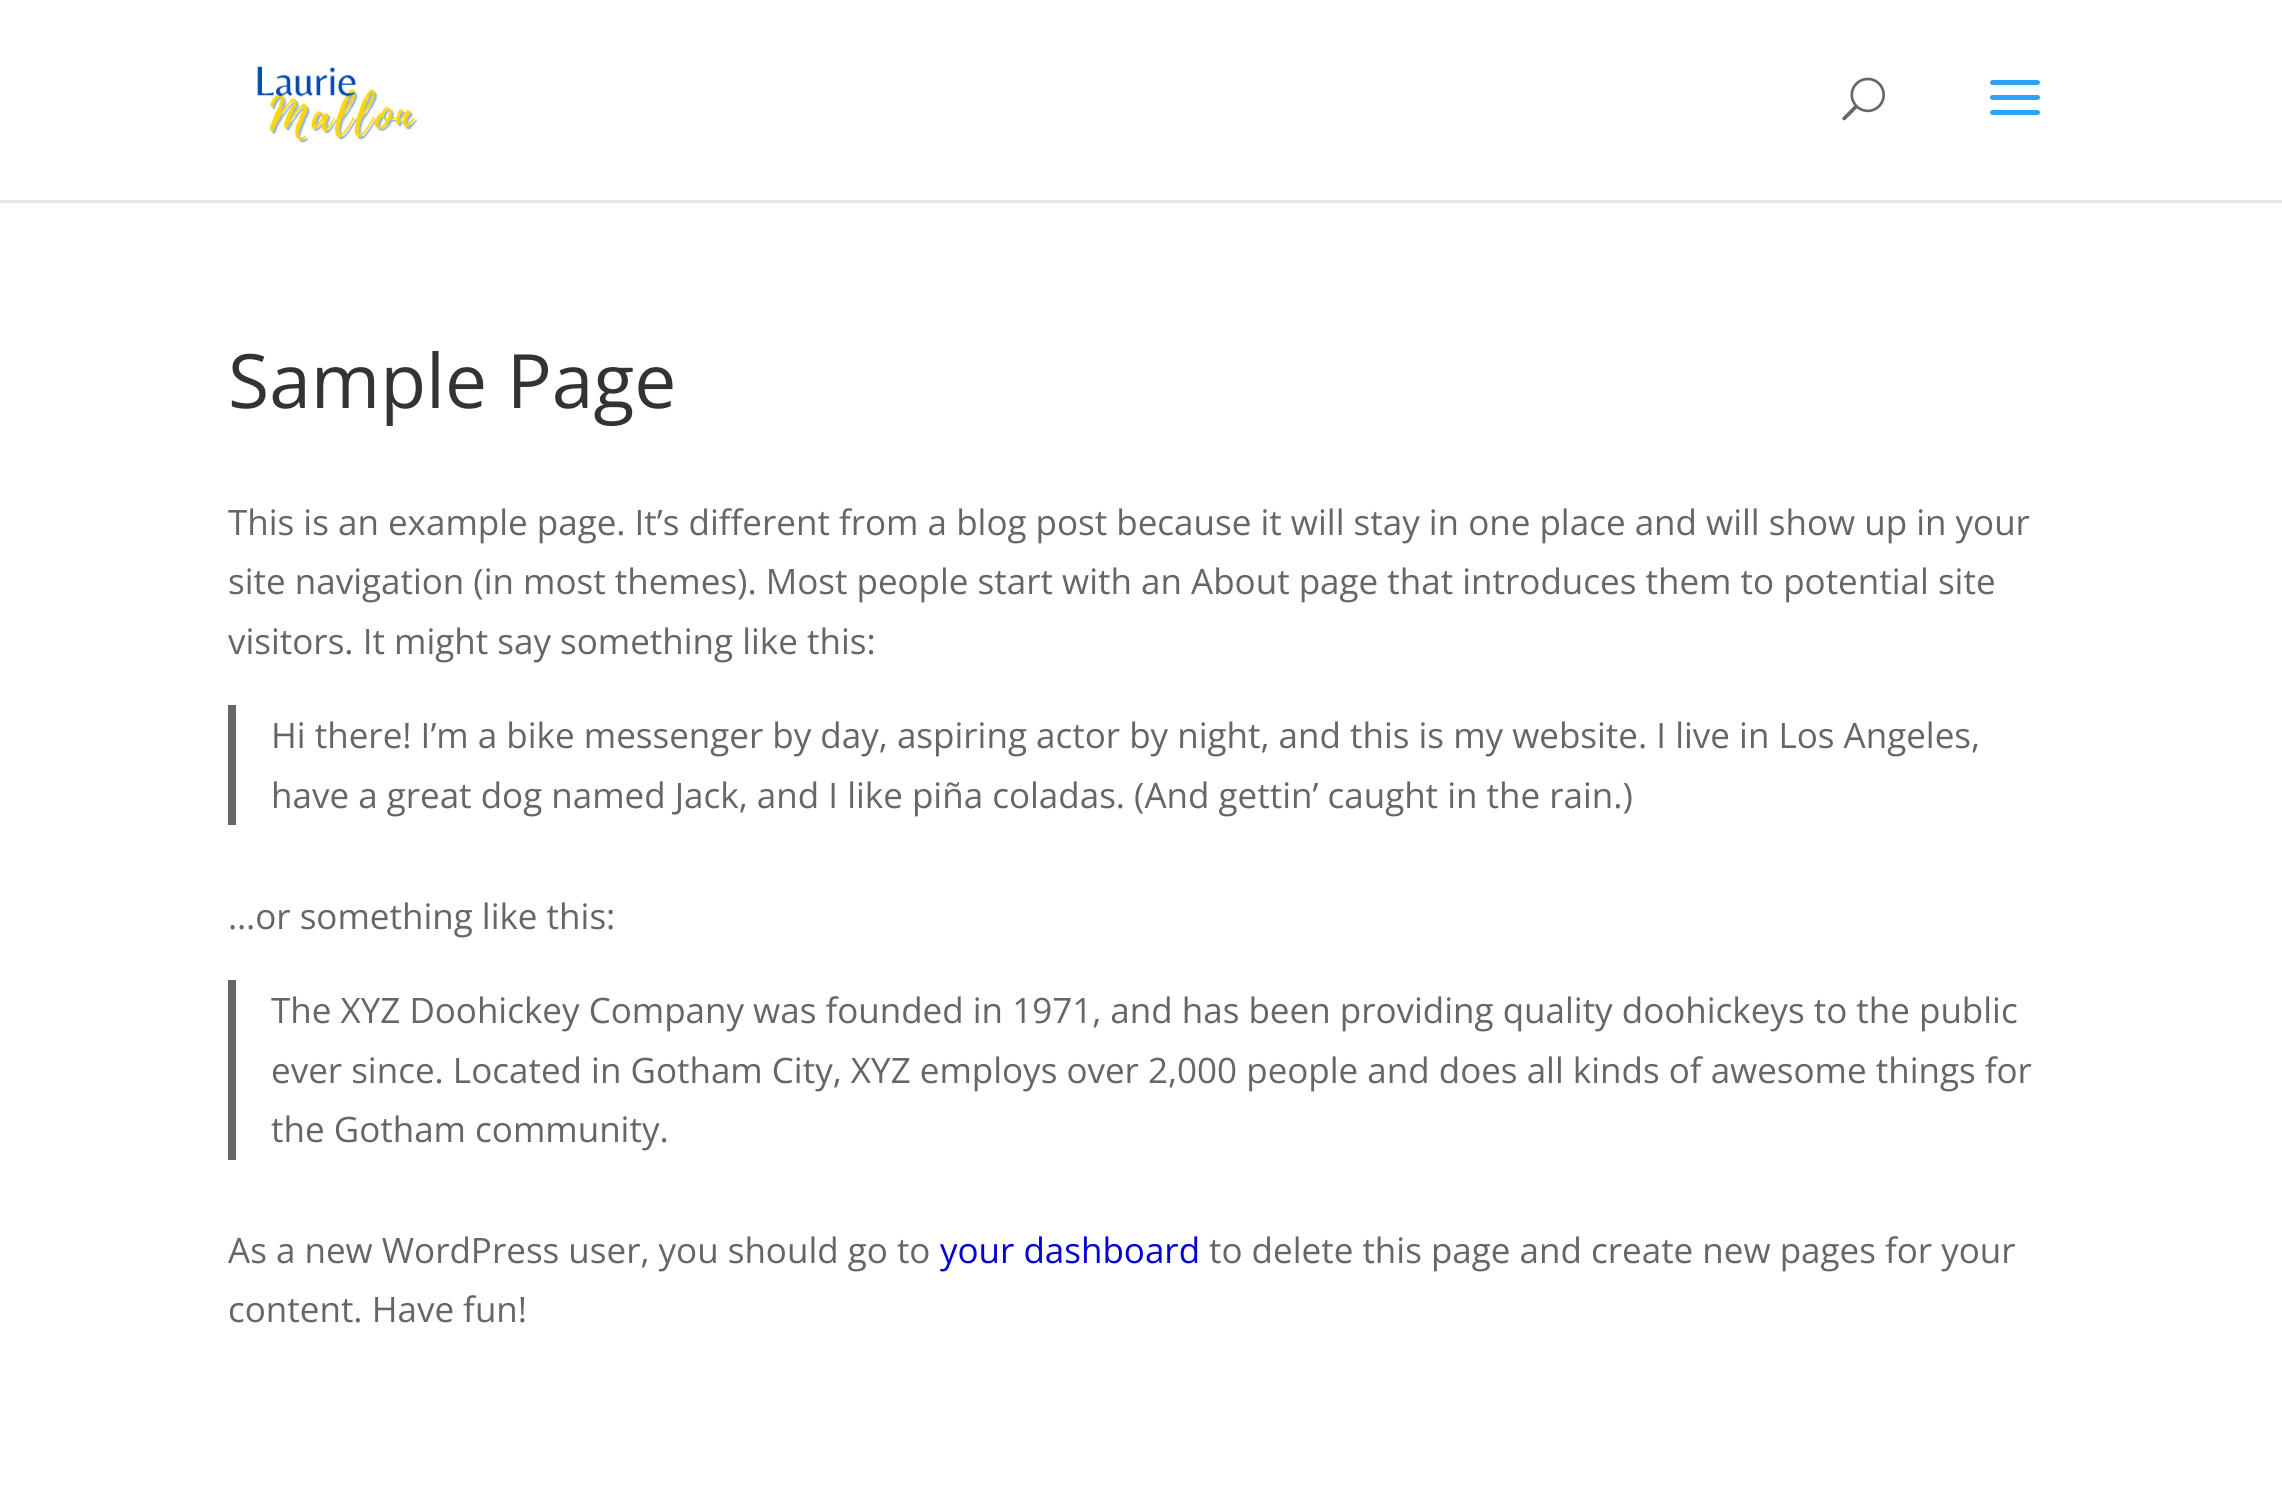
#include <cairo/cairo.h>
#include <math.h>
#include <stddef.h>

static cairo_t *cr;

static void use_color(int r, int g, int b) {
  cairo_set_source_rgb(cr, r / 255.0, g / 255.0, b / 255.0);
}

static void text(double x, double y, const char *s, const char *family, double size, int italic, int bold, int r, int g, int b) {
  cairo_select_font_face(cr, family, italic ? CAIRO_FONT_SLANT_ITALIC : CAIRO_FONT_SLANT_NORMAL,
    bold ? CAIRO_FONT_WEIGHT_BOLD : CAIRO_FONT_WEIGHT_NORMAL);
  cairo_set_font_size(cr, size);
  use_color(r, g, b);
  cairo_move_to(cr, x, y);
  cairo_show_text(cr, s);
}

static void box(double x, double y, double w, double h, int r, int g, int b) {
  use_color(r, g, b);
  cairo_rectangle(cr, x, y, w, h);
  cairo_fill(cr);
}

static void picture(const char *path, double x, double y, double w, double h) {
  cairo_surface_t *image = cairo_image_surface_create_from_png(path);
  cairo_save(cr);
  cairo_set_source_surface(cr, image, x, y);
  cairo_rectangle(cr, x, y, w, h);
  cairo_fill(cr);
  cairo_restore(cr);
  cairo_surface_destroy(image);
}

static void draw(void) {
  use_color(255, 255, 255);
  cairo_paint(cr);
  use_color(230, 230, 230);
  cairo_new_path(cr);
  cairo_move_to(cr, 0, 200);
  cairo_line_to(cr, 0, 203);
  cairo_line_to(cr, 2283, 203);
  cairo_line_to(cr, 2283, 3);
  cairo_line_to(cr, 2282, 3);
  cairo_line_to(cr, 2282, 200);
  cairo_close_path(cr);
  cairo_fill(cr);
  picture("img_01.png", 257, 66, 160, 77);
  picture("img_02.png", 1842, 77, 43, 44);
  picture("img_03.png", 1990, 80, 50, 35);
  box(228, 705, 8, 120, 102, 102, 102);
  box(228, 980, 8, 180, 102, 102, 102);
  text(228, 408, "Sample Page", "Open Sans", 75, 0, 0, 51, 51, 51);
  text(228, 535, "This is an example page. It’s different from a blog post because it will stay in one place and will show up in your", "Open Sans", 35, 0, 0, 102, 102, 102);
  text(228, 594, "site navigation (in most themes). Most people start with an About page that introduces them to potential site", "Open Sans", 35, 0, 0, 102, 102, 102);
  text(228, 654, "visitors. It might say something like this:", "Open Sans", 35, 0, 0, 102, 102, 102);
  text(271, 748, "Hi there! I’m a bike messenger by day, aspiring actor by night, and this is my website. I live in Los Angeles,", "Open Sans", 35, 0, 0, 102, 102, 102);
  text(271, 808, "have a great dog named Jack, and I like piña coladas. (And gettin’ caught in the rain.)", "Open Sans", 35, 0, 0, 102, 102, 102);
  text(228, 929, "…or something like this:", "Open Sans", 35, 0, 0, 102, 102, 102);
  text(271, 1023, "The XYZ Doohickey Company was founded in 1971, and has been providing quality doohickeys to the public", "Open Sans", 35, 0, 0, 102, 102, 102);
  text(271, 1083, "ever since. Located in Gotham City, XYZ employs over 2,000 people and does all kinds of awesome things for", "Open Sans", 35, 0, 0, 102, 102, 102);
  text(271, 1142, "the Gotham community.", "Open Sans", 35, 0, 0, 102, 102, 102);
  text(228, 1263, "As a new WordPress user, you should go to", "Open Sans", 35, 0, 0, 102, 102, 102);
  text(940, 1263, "your dashboard", "Open Sans", 35, 0, 0, 3, 0, 211);
  text(1209, 1263, "to delete this page and create new pages for your", "Open Sans", 35, 0, 0, 102, 102, 102);
  text(228, 1322, "content. Have fun!", "Open Sans", 35, 0, 0, 102, 102, 102);
}

int main(void) {
  cairo_surface_t *surface = cairo_image_surface_create(CAIRO_FORMAT_RGB24, 2282, 1506);
  cr = cairo_create(surface);
  cairo_font_options_t *options = cairo_font_options_create();
  cairo_font_options_set_hint_metrics(options, CAIRO_HINT_METRICS_OFF);
  cairo_font_options_set_hint_style(options, CAIRO_HINT_STYLE_NONE);
  cairo_set_font_options(cr, options);
  cairo_set_miter_limit(cr, 4);
  draw();
  cairo_surface_write_to_png(surface, "out.png");
  cairo_font_options_destroy(options);
  cairo_destroy(cr);
  cairo_surface_destroy(surface);
  return 0;
}
